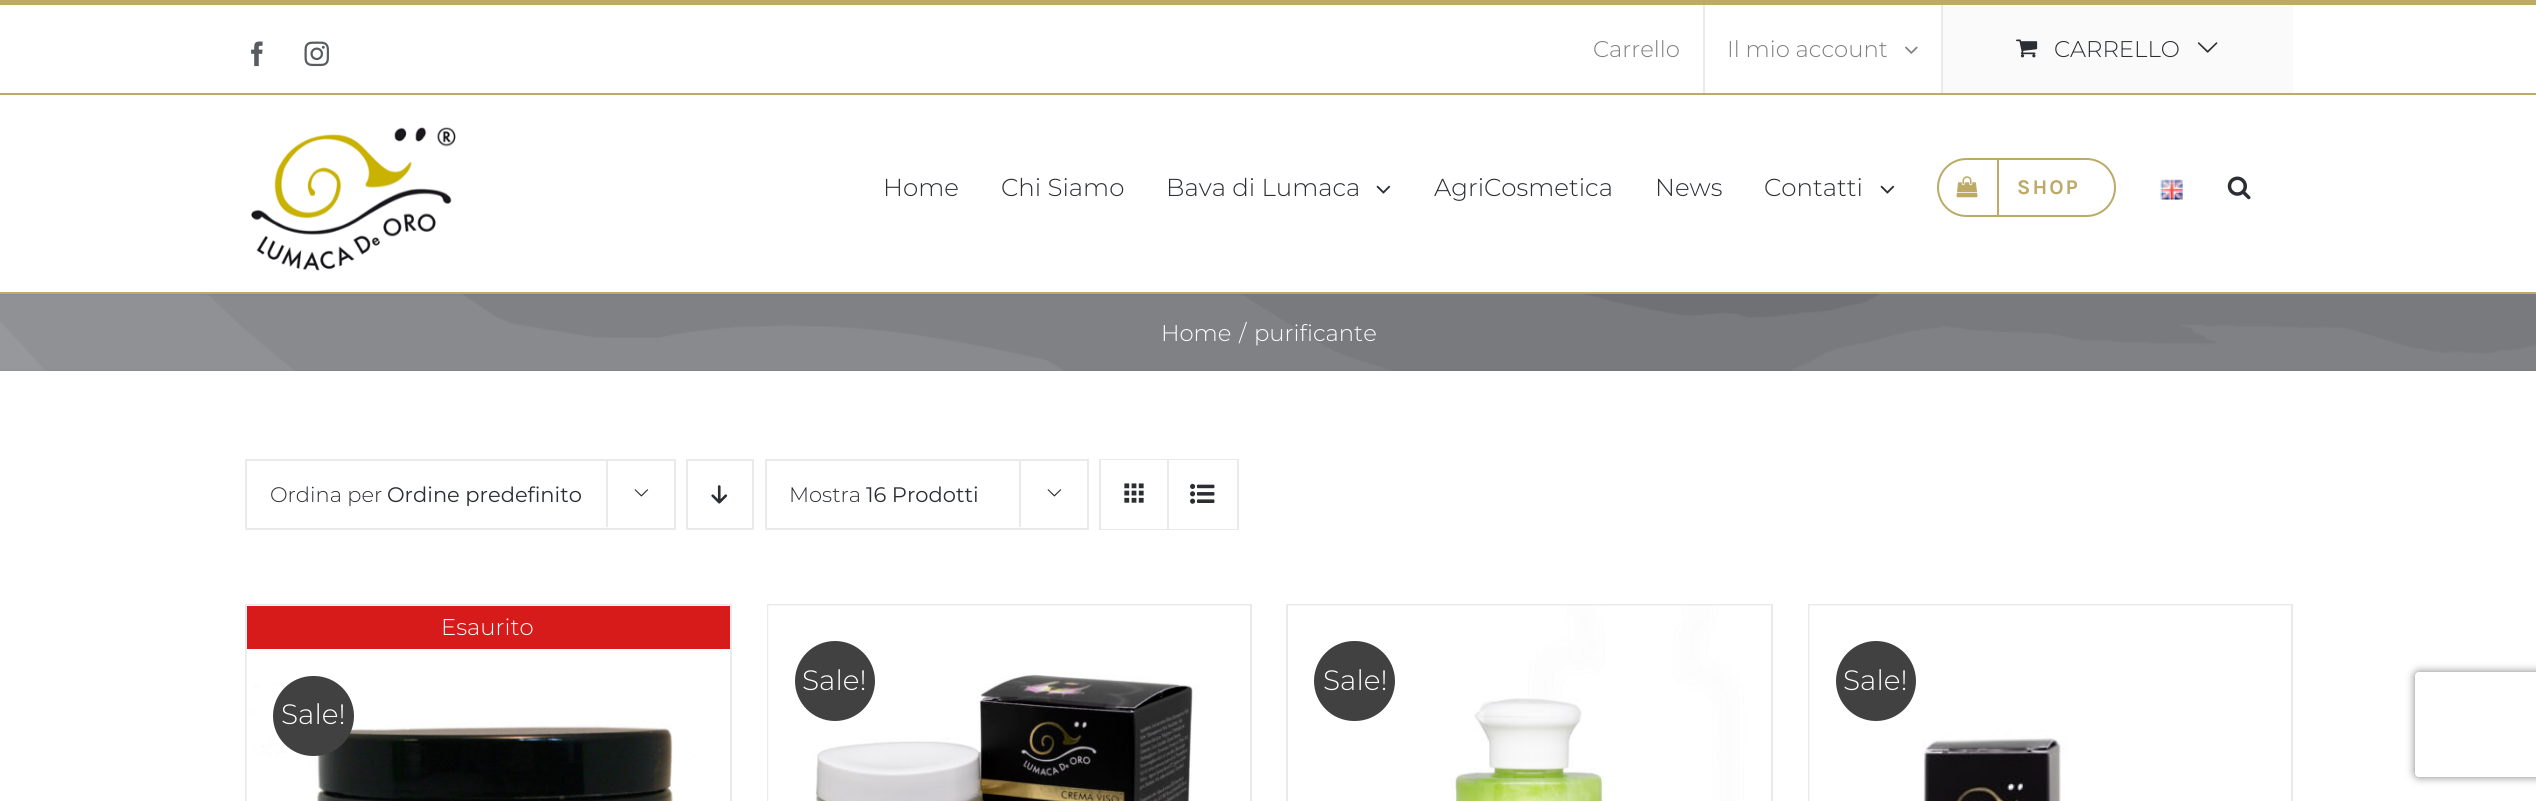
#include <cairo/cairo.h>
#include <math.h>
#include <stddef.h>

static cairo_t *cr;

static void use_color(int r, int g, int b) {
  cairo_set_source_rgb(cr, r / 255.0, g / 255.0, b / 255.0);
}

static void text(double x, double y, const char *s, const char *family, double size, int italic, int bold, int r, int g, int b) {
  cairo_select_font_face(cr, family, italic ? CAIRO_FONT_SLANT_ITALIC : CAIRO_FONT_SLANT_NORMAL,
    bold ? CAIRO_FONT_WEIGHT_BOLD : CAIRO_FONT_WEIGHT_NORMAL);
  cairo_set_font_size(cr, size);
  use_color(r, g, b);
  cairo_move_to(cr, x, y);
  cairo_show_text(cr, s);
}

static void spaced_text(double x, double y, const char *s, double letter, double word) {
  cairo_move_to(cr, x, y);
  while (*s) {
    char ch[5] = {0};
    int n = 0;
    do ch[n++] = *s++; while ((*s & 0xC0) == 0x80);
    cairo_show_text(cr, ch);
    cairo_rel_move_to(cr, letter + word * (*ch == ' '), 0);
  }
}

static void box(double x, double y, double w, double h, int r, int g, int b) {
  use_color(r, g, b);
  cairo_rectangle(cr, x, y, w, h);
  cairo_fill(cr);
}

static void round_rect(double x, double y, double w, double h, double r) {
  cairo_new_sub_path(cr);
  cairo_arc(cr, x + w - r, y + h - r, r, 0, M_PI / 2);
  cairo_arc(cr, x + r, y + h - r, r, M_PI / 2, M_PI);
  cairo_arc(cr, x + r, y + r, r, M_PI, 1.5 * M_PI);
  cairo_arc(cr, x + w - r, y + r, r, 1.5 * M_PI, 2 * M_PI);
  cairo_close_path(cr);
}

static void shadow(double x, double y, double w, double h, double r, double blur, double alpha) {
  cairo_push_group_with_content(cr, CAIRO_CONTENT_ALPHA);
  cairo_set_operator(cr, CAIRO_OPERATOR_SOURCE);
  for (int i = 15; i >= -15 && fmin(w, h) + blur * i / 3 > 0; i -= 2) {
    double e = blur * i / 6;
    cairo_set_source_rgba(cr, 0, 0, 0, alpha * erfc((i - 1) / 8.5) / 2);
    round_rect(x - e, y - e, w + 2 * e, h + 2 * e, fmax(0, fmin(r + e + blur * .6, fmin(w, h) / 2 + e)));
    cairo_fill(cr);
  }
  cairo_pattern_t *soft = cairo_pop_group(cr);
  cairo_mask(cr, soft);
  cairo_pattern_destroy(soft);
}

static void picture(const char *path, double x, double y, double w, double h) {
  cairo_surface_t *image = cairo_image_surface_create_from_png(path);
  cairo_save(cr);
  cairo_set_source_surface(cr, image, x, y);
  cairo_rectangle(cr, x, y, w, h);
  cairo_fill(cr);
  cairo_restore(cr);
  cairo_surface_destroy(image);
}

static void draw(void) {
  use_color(255, 255, 255);
  cairo_paint(cr);
  box(0, 0, 2536, 5, 188, 170, 102);
  box(0, 93, 2536, 2, 188, 170, 102);
  picture("img_01.png", 251, 41, 12, 26);
  picture("img_02.png", 304, 41, 25, 26);
  box(1703, 5, 2, 88, 234, 234, 234);
  picture("img_03.png", 1905, 46, 13, 8);
  box(1941, 5, 2, 88, 234, 234, 234);
  box(1943, 5, 350, 88, 250, 250, 250);
  picture("img_04.png", 2016, 39, 22, 19);
  picture("img_05.png", 2197, 42, 21, 11);
  box(0, 292, 2536, 2, 188, 170, 102);
  picture("img_06.png", 251, 127, 205, 144);
  picture("img_07.png", 1376, 185, 15, 9);
  picture("img_07.png", 1880, 185, 15, 9);
  round_rect(1938, 159, 177, 57, 28.5);
  cairo_stroke(cr);
  box(1997, 159, 2, 56, 188, 170, 102);
  picture("img_08.png", 1956, 176, 22, 22);
  picture("img_09.png", 2160, 179, 23, 21);
  picture("img_10.png", 2227, 176, 24, 24);
  picture("img_11.png", 0, 294, 2536, 77);
  cairo_rectangle(cr, 246, 460, 429, 69);
  use_color(234, 234, 234);
  cairo_stroke(cr);
  box(606, 459, 2, 68, 234, 234, 234);
  picture("img_12.png", 634, 489, 15, 8);
  cairo_rectangle(cr, 687, 460, 66, 69);
  cairo_stroke(cr);
  picture("img_13.png", 711, 485, 17, 19);
  cairo_rectangle(cr, 766, 460, 322, 69);
  cairo_stroke(cr);
  box(1019, 459, 2, 68, 234, 234, 234);
  picture("img_12.png", 1047, 489, 15, 8);
  cairo_rectangle(cr, 1100, 460, 138, 69);
  cairo_stroke(cr);
  box(1101, 460, 66, 69, 255, 255, 255);
  box(1167, 460, 2, 69, 234, 234, 234);
  picture("img_14.png", 1124, 483, 20, 20);
  box(1169, 460, 68, 69, 255, 255, 255);
  picture("img_15.png", 1190, 483, 25, 21);
  box(245, 604, 487, 2, 234, 234, 234);
  box(730, 604, 2, 197, 234, 234, 234);
  box(245, 604, 2, 197, 234, 234, 234);
  picture("img_16.png", 246, 605, 484, 196);
  box(247, 606, 483, 43, 215, 26, 26);
  use_color(65, 65, 65);
  round_rect(273, 676, 81, 80, 40);
  cairo_fill(cr);
  box(767, 604, 484, 2, 234, 234, 234);
  box(1250, 604, 2, 197, 234, 234, 234);
  box(767, 604, 2, 197, 234, 234, 234);
  picture("img_17.png", 768, 605, 482, 196);
  use_color(65, 65, 65);
  cairo_arc(cr, 835, 681, 40, 0, 2 * M_PI);
  cairo_fill(cr);
  box(1286, 604, 487, 2, 234, 234, 234);
  box(1771, 604, 2, 197, 234, 234, 234);
  box(1286, 604, 2, 197, 234, 234, 234);
  picture("img_18.png", 1288, 605, 483, 196);
  use_color(65, 65, 65);
  round_rect(1314, 641, 81, 80, 40);
  cairo_fill(cr);
  box(1808, 604, 485, 2, 234, 234, 234);
  box(2291, 604, 2, 197, 234, 234, 234);
  box(1808, 604, 2, 197, 234, 234, 234);
  picture("img_19.png", 1809, 605, 482, 196);
  use_color(65, 65, 65);
  cairo_arc(cr, 1876, 681, 40, 0, 2 * M_PI);
  cairo_fill(cr);
  cairo_save(cr);
  cairo_set_fill_rule(cr, CAIRO_FILL_RULE_EVEN_ODD);
  cairo_new_path(cr);
  cairo_move_to(cr, 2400, 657);
  cairo_line_to(cr, 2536, 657);
  cairo_line_to(cr, 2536, 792);
  cairo_line_to(cr, 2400, 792);
  cairo_close_path(cr);
  cairo_move_to(cr, 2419, 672);
  cairo_line_to(cr, 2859, 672);
  cairo_curve_to(cr, 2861, 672, 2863, 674, 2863, 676);
  cairo_line_to(cr, 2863, 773);
  cairo_curve_to(cr, 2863, 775, 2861, 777, 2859, 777);
  cairo_line_to(cr, 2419, 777);
  cairo_curve_to(cr, 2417, 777, 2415, 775, 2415, 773);
  cairo_line_to(cr, 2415, 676);
  cairo_curve_to(cr, 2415, 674, 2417, 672, 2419, 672);
  cairo_close_path(cr);
  cairo_clip(cr);
  use_color(128, 128, 128);
  shadow(2415, 672, 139, 105, 4, 4.5, 1);
  cairo_restore(cr);
  text(1593, 57, "Carrello", "Montserrat Light", 22.75, 0, 0, 128, 128, 128);
  text(1727, 57, "Il mio account", "Montserrat Light", 22.75, 0, 0, 128, 128, 128);
  text(2054, 57, "CARRELLO", "Montserrat Light", 22.75, 0, 0, 43, 46, 50);
  text(883, 196, "Home", "Montserrat Light", 24.5, 0, 0, 43, 46, 50);
  text(1001, 196, "Chi Siamo", "Montserrat Light", 24.5, 0, 0, 43, 46, 50);
  text(1166, 196, "Bava di Lumaca", "Montserrat Light", 24.5, 0, 0, 43, 46, 50);
  text(1434, 196, "AgriCosmetica", "Montserrat Light", 24.5, 0, 0, 43, 46, 50);
  text(1655, 196, "News", "Montserrat Light", 24.5, 0, 0, 43, 46, 50);
  text(1764, 196, "Contatti", "Montserrat Light", 24.5, 0, 0, 43, 46, 50);
  cairo_select_font_face(cr, "Karla", CAIRO_FONT_SLANT_NORMAL, CAIRO_FONT_WEIGHT_BOLD);
  cairo_set_font_size(cr, 21);
  use_color(188, 170, 102);
  spaced_text(2017, 194, "SHOP", 2, 0);
  text(1161, 341, "Home", "Montserrat Light", 22.75, 0, 0, 255, 255, 255);
  text(1239, 341, "/", "Montserrat Light", 22.75, 0, 0, 255, 255, 255);
  text(1254, 341, "purificante", "Montserrat Light", 22.75, 0, 0, 255, 255, 255);
  text(270, 502, "Ordina per", "Montserrat Light", 21, 0, 0, 43, 46, 50);
  text(387, 502, "Ordine predefinito", "Montserrat", 21, 0, 0, 43, 46, 50);
  text(789, 502, "Mostra", "Montserrat Light", 21, 0, 0, 43, 46, 50);
  text(866, 502, "16 Prodotti", "Montserrat", 21, 0, 0, 43, 46, 50);
  text(441, 635, "Esaurito", "Montserrat Light", 22.75, 0, 0, 255, 255, 255);
  text(281, 724, "Sale!", "Montserrat Light", 28, 0, 0, 255, 255, 255);
  text(802, 690, "Sale!", "Montserrat Light", 28, 0, 0, 255, 255, 255);
  text(1323, 690, "Sale!", "Montserrat Light", 28, 0, 0, 255, 255, 255);
  text(1843, 690, "Sale!", "Montserrat Light", 28, 0, 0, 255, 255, 255);
}

int main(void) {
  cairo_surface_t *surface = cairo_image_surface_create(CAIRO_FORMAT_RGB24, 2536, 801);
  cr = cairo_create(surface);
  cairo_font_options_t *options = cairo_font_options_create();
  cairo_font_options_set_hint_metrics(options, CAIRO_HINT_METRICS_OFF);
  cairo_font_options_set_hint_style(options, CAIRO_HINT_STYLE_NONE);
  cairo_set_font_options(cr, options);
  cairo_set_miter_limit(cr, 4);
  draw();
  cairo_surface_write_to_png(surface, "out.png");
  cairo_font_options_destroy(options);
  cairo_destroy(cr);
  cairo_surface_destroy(surface);
  return 0;
}
